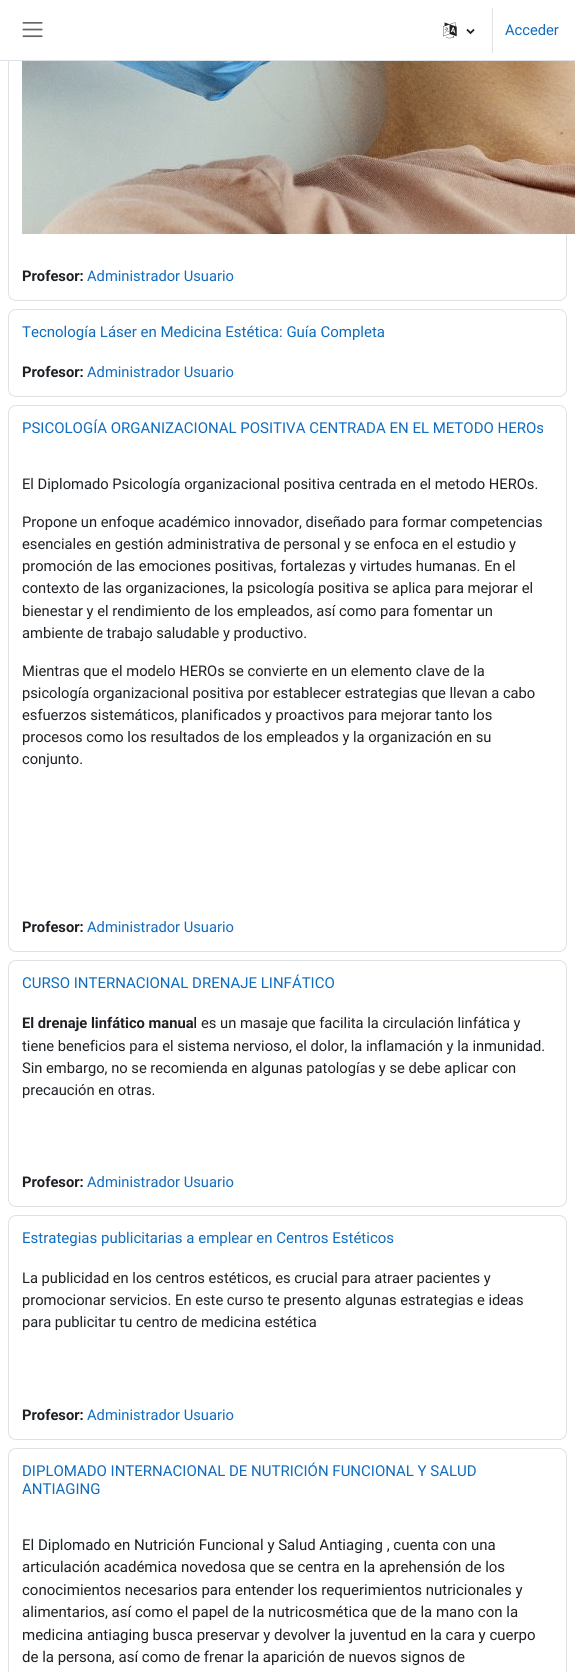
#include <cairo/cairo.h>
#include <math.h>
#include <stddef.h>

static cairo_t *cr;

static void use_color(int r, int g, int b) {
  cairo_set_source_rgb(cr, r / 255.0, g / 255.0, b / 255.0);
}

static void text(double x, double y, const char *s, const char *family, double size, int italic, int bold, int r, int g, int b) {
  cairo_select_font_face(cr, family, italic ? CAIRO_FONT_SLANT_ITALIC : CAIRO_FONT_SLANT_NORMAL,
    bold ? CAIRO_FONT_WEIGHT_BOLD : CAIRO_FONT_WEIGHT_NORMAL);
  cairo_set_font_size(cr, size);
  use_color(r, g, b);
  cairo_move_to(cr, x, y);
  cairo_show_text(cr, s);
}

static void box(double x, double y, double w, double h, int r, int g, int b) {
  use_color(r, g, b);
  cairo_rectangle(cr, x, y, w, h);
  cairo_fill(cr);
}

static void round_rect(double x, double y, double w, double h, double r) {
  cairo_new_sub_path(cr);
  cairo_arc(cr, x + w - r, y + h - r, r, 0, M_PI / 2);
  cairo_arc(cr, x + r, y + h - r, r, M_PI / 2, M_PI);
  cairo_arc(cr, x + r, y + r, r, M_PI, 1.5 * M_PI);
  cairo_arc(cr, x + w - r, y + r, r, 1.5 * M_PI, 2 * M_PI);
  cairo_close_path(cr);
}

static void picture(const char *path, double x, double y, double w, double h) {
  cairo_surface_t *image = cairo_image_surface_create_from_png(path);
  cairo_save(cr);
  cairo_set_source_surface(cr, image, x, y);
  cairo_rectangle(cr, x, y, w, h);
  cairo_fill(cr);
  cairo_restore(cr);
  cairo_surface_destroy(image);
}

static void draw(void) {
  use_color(255, 255, 255);
  cairo_paint(cr);
  round_rect(8.5, -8.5, 558, 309, 7.5);
  use_color(222, 226, 230);
  cairo_set_line_width(cr, 1);
  cairo_stroke(cr);
  box(8, 0, 559, 60, 255, 255, 255);
  box(0, 60, 575, 1, 222, 226, 230);
  picture("img_01.png", 22, 22, 21, 16);
  picture("img_02.png", 443, 22, 14, 17);
  picture("img_03.png", 466, 29, 9, 6);
  box(492, 8, 1, 45, 222, 226, 230);
  picture("img_04.png", 22, 61, 553, 173);
  round_rect(8.5, 309.5, 558, 87, 7.5);
  cairo_stroke(cr);
  round_rect(8.5, 405.5, 558, 546, 7.5);
  cairo_stroke(cr);
  round_rect(8.5, 960.5, 558, 246, 7.5);
  cairo_stroke(cr);
  round_rect(8.5, 1215.5, 558, 224, 7.5);
  cairo_stroke(cr);
  round_rect(8.5, 1448.5, 558, 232, 7.5);
  cairo_stroke(cr);
  text(505, 35, "Acceder", "Roboto", 14.7, 0, 0, 15, 108, 191);
  text(22, 281, "Profesor:", "Roboto", 14.7, 0, 1, 29, 33, 37);
  text(87, 281, "Administrador Usuario", "Roboto", 14.7, 0, 0, 15, 108, 191);
  text(22, 337, "Tecnología Láser en Medicina Estética: Guía Completa", "Roboto", 15, 0, 0, 15, 108, 191);
  text(22, 377, "Profesor:", "Roboto", 14.7, 0, 1, 29, 33, 37);
  text(87, 377, "Administrador Usuario", "Roboto", 14.7, 0, 0, 15, 108, 191);
  text(22, 433, "PSICOLOGÍA ORGANIZACIONAL POSITIVA CENTRADA EN EL METODO HEROs", "Roboto", 15, 0, 0, 15, 108, 191);
  text(22, 489, "El Diplomado Psicología organizacional positiva centrada en el metodo HEROs.", "Roboto", 14.7, 0, 0, 29, 33, 37);
  text(22, 527, "Propone un enfoque académico innovador, diseñado para formar competencias", "Roboto", 14.7, 0, 0, 29, 33, 37);
  text(22, 549, "esenciales en gestión administrativa de personal y se enfoca en el estudio y", "Roboto", 14.7, 0, 0, 29, 33, 37);
  text(22, 571, "promoción de las emociones positivas, fortalezas y virtudes humanas. En el", "Roboto", 14.7, 0, 0, 29, 33, 37);
  text(22, 593, "contexto de las organizaciones, la psicología positiva se aplica para mejorar el", "Roboto", 14.7, 0, 0, 29, 33, 37);
  text(22, 616, "bienestar y el rendimiento de los empleados, así como para fomentar un", "Roboto", 14.7, 0, 0, 29, 33, 37);
  text(22, 638, "ambiente de trabajo saludable y productivo.", "Roboto", 14.7, 0, 0, 29, 33, 37);
  text(22, 676, "Mientras que el modelo HEROs se convierte en un elemento clave de la", "Roboto", 14.7, 0, 0, 29, 33, 37);
  text(22, 698, "psicología organizacional positiva por establecer estrategias que llevan a cabo", "Roboto", 14.7, 0, 0, 29, 33, 37);
  text(22, 720, "esfuerzos sistemáticos, planificados y proactivos para mejorar tanto los", "Roboto", 14.7, 0, 0, 29, 33, 37);
  text(22, 742, "procesos como los resultados de los empleados y la organización en su", "Roboto", 14.7, 0, 0, 29, 33, 37);
  text(22, 764, "conjunto.", "Roboto", 14.7, 0, 0, 29, 33, 37);
  text(22, 932, "Profesor:", "Roboto", 14.7, 0, 1, 29, 33, 37);
  text(87, 932, "Administrador Usuario", "Roboto", 14.7, 0, 0, 15, 108, 191);
  text(22, 988, "CURSO INTERNACIONAL DRENAJE LINFÁTICO", "Roboto", 15, 0, 0, 15, 108, 191);
  text(22, 1028, "El drenaje linfático manual", "Roboto", 14.7, 0, 1, 29, 33, 37);
  text(201, 1028, "es un masaje que facilita la circulación linfática y", "Roboto", 14.7, 0, 0, 29, 33, 37);
  text(22, 1051, "tiene beneficios para el sistema nervioso, el dolor, la inflamación y la inmunidad.", "Roboto", 14.7, 0, 0, 29, 33, 37);
  text(22, 1073, "Sin embargo, no se recomienda en algunas patologías y se debe aplicar con", "Roboto", 14.7, 0, 0, 29, 33, 37);
  text(22, 1095, "precaución en otras.", "Roboto", 14.7, 0, 0, 29, 33, 37);
  text(22, 1187, "Profesor:", "Roboto", 14.7, 0, 1, 29, 33, 37);
  text(87, 1187, "Administrador Usuario", "Roboto", 14.7, 0, 0, 15, 108, 191);
  text(22, 1243, "Estrategias publicitarias a emplear en Centros Estéticos", "Roboto", 15, 0, 0, 15, 108, 191);
  text(22, 1283, "La publicidad en los centros estéticos, es crucial para atraer pacientes y", "Roboto", 14.7, 0, 0, 29, 33, 37);
  text(22, 1305, "promocionar servicios. En este curso te presento algunas estrategias e ideas", "Roboto", 14.7, 0, 0, 29, 33, 37);
  text(22, 1327, "para publicitar tu centro de medicina estética", "Roboto", 14.7, 0, 0, 29, 33, 37);
  text(22, 1420, "Profesor:", "Roboto", 14.7, 0, 1, 29, 33, 37);
  text(87, 1420, "Administrador Usuario", "Roboto", 14.7, 0, 0, 15, 108, 191);
  text(22, 1476, "DIPLOMADO INTERNACIONAL DE NUTRICIÓN FUNCIONAL Y SALUD", "Roboto", 15, 0, 0, 15, 108, 191);
  text(22, 1494, "ANTIAGING", "Roboto", 15, 0, 0, 15, 108, 191);
  text(22, 1550, "El Diplomado en Nutrición Funcional y Salud Antiaging , cuenta con una", "Roboto", 15, 0, 0, 29, 33, 37);
  text(22, 1572, "articulación académica novedosa que se centra en la aprehensión de los", "Roboto", 15, 0, 0, 29, 33, 37);
  text(22, 1595, "conocimientos necesarios para entender los requerimientos nutricionales y", "Roboto", 15, 0, 0, 29, 33, 37);
  text(22, 1617, "alimentarios, así como el papel de la nutricosmética que de la mano con la", "Roboto", 15, 0, 0, 29, 33, 37);
  text(22, 1640, "medicina antiaging busca preservar y devolver la juventud en la cara y cuerpo", "Roboto", 15, 0, 0, 29, 33, 37);
  text(22, 1662, "de la persona, así como de frenar la aparición de nuevos signos de", "Roboto", 15, 0, 0, 29, 33, 37);
}

int main(void) {
  cairo_surface_t *surface = cairo_image_surface_create(CAIRO_FORMAT_RGB24, 575, 1672);
  cr = cairo_create(surface);
  cairo_font_options_t *options = cairo_font_options_create();
  cairo_font_options_set_hint_metrics(options, CAIRO_HINT_METRICS_OFF);
  cairo_font_options_set_hint_style(options, CAIRO_HINT_STYLE_NONE);
  cairo_set_font_options(cr, options);
  cairo_set_miter_limit(cr, 4);
  draw();
  cairo_surface_write_to_png(surface, "out.png");
  cairo_font_options_destroy(options);
  cairo_destroy(cr);
  cairo_surface_destroy(surface);
  return 0;
}
